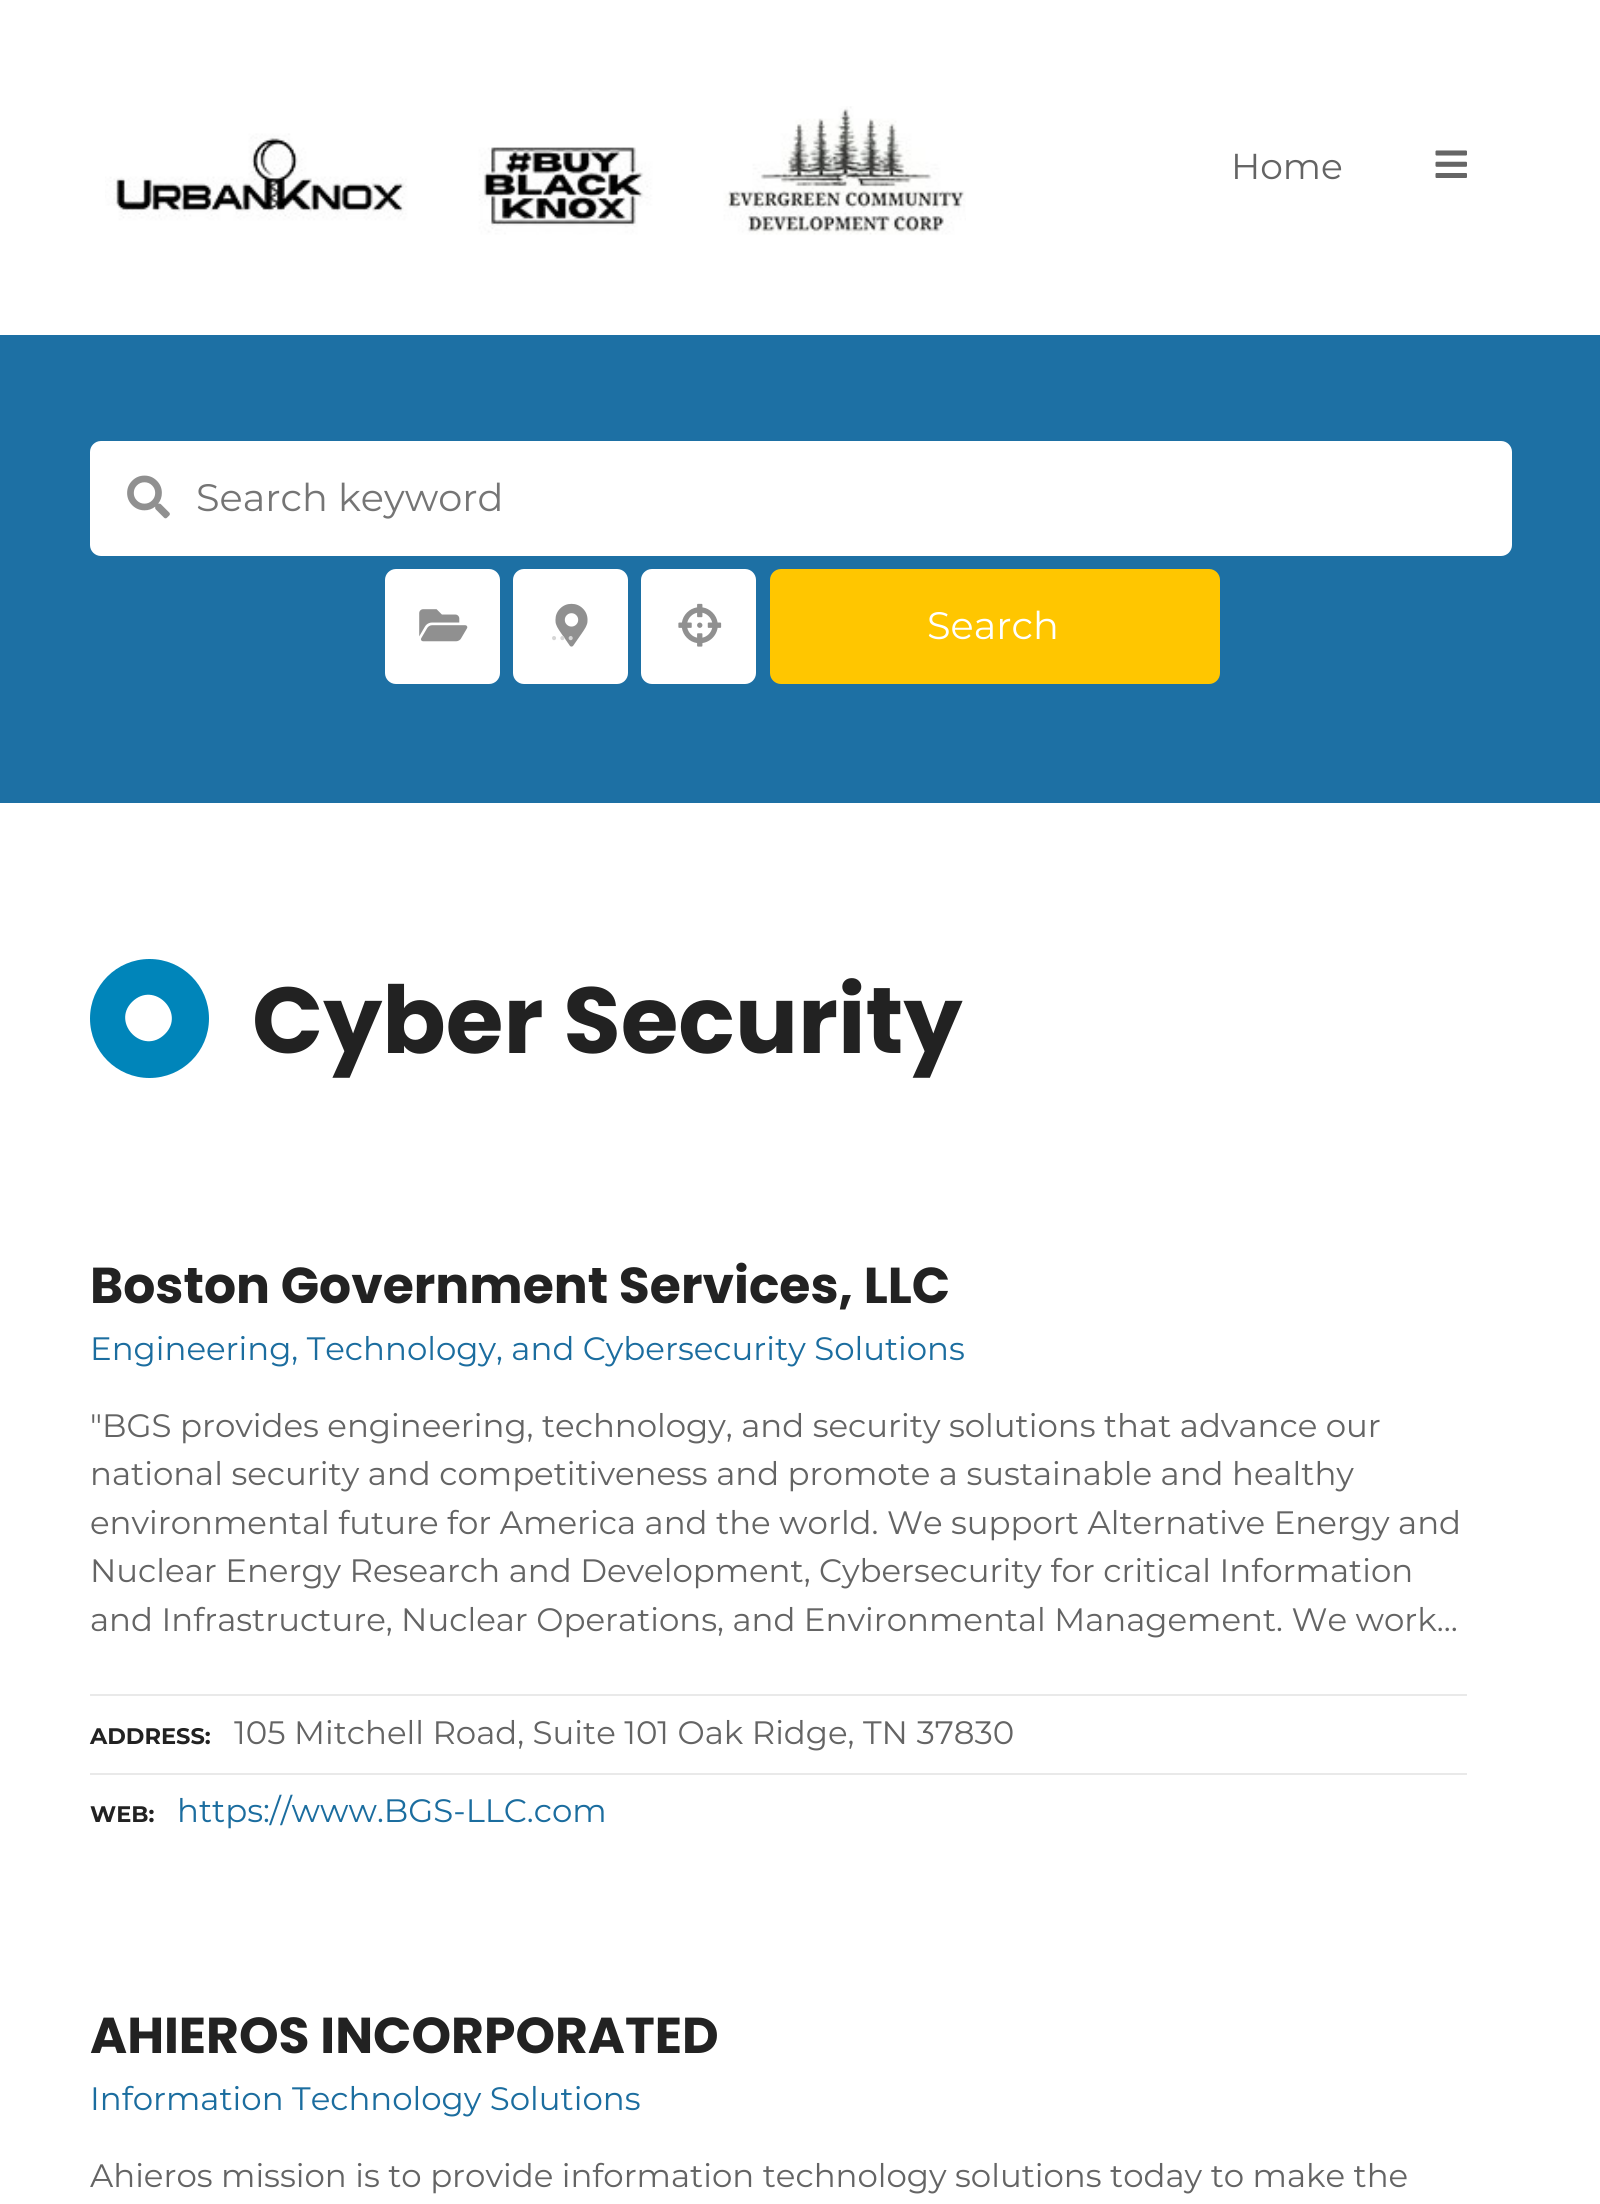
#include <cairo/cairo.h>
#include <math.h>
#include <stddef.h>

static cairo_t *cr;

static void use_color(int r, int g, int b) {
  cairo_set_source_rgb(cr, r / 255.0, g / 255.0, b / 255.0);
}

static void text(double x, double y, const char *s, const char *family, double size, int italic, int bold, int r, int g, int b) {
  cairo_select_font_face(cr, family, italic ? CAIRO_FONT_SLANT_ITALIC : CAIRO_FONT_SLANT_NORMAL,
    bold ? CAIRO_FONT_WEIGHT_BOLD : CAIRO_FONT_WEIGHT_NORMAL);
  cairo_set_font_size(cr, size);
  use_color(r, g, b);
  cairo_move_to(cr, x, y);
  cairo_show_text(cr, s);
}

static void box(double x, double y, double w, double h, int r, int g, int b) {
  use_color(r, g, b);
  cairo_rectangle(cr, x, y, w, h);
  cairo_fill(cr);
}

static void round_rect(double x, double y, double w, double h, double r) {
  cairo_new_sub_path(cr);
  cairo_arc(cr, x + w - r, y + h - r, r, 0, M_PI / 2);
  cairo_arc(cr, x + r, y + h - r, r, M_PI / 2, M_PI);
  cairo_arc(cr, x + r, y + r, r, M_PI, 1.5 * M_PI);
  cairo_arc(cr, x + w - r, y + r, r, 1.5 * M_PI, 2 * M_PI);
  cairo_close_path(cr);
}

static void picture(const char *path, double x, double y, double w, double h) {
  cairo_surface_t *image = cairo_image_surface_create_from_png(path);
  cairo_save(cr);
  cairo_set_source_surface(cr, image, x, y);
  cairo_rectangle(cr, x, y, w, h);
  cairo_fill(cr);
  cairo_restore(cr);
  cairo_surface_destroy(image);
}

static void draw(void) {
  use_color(255, 255, 255);
  cairo_paint(cr);
  picture("img_01.png", 105, 106, 861, 129);
  picture("img_02.png", 1435, 150, 32, 28);
  box(0, 335, 1600, 468, 29, 112, 164);
  use_color(255, 255, 255);
  round_rect(90, 441, 1422, 115, 11);
  cairo_fill(cr);
  picture("img_03.png", 127, 475, 43, 44);
  round_rect(385, 569, 115, 115, 11);
  cairo_fill(cr);
  picture("img_04.png", 419, 609, 49, 33);
  round_rect(513, 569, 115, 115, 11);
  cairo_fill(cr);
  picture("img_05.png", 555, 603, 33, 44);
  round_rect(641, 569, 115, 115, 11);
  cairo_fill(cr);
  picture("img_06.png", 678, 603, 44, 44);
  use_color(255, 198, 0);
  round_rect(771, 570, 448, 113, 10);
  cairo_fill_preserve(cr);
  cairo_stroke(cr);
  use_color(0, 133, 186);
  cairo_arc(cr, 149.5, 1018.5, 59.5, 0, 2 * M_PI);
  cairo_fill(cr);
  use_color(255, 255, 255);
  cairo_new_path(cr);
  cairo_move_to(cr, 132, 1002);
  cairo_curve_to(cr, 154, 980, 186, 1013, 165, 1034);
  cairo_curve_to(cr, 143, 1056, 111, 1023, 132, 1002);
  cairo_close_path(cr);
  cairo_fill(cr);
  box(90, 1694, 1377, 2, 233, 233, 233);
  box(90, 1773, 1377, 2, 233, 233, 233);
  text(1231, 179, "Home", "Montserrat", 36, 0, 0, 100, 100, 100);
  text(196, 511, "Search keyword", "Montserrat", 38.25, 0, 0, 117, 117, 117);
  text(550, 640, "…", "Montserrat", 38.25, 0, 0, 214, 214, 214);
  text(927, 639, "Search", "Montserrat", 38.25, 0, 0, 255, 255, 255);
  text(252, 1053, "Cyber Security", "Poppins", 93.5, 0, 1, 34, 34, 34);
  text(90, 1303, "Boston Government Services, LLC", "Poppins", 50.4, 0, 1, 34, 34, 34);
  text(90, 1360, "Engineering, Technology, and Cybersecurity Solutions", "Montserrat", 32.4, 0, 0, 27, 109, 159);
  text(90, 1437, "\"BGS provides engineering, technology, and security solutions that advance our", "Montserrat", 32.4, 0, 0, 100, 100, 100);
  text(90, 1485, "national security and competitiveness and promote a sustainable and healthy", "Montserrat", 32.4, 0, 0, 100, 100, 100);
  text(90, 1534, "environmental future for America and the world. We support Alternative Energy and", "Montserrat", 32.4, 0, 0, 100, 100, 100);
  text(90, 1582, "Nuclear Energy Research and Development, Cybersecurity for critical Information", "Montserrat", 32.4, 0, 0, 100, 100, 100);
  text(90, 1631, "and Infrastructure, Nuclear Operations, and Environmental Management. We work…", "Montserrat", 32.4, 0, 0, 100, 100, 100);
  text(90, 1744, "ADDRESS:", "Montserrat", 22.5, 0, 1, 34, 34, 34);
  text(234, 1744, "105 Mitchell Road, Suite 101 Oak Ridge, TN 37830", "Montserrat", 32.4, 0, 0, 100, 100, 100);
  text(90, 1822, "WEB:", "Montserrat", 22.5, 0, 1, 34, 34, 34);
  text(177, 1822, "https://www.BGS-LLC.com", "Montserrat", 32.4, 0, 0, 27, 109, 159);
  text(90, 2053, "AHIEROS INCORPORATED", "Poppins", 50.4, 0, 1, 34, 34, 34);
  text(90, 2110, "Information Technology Solutions", "Montserrat", 32.4, 0, 0, 27, 109, 159);
  text(90, 2187, "Ahieros mission is to provide information technology solutions today to make the", "Montserrat", 32.4, 0, 0, 100, 100, 100);
}

int main(void) {
  cairo_surface_t *surface = cairo_image_surface_create(CAIRO_FORMAT_RGB24, 1600, 2204);
  cr = cairo_create(surface);
  cairo_font_options_t *options = cairo_font_options_create();
  cairo_font_options_set_hint_metrics(options, CAIRO_HINT_METRICS_OFF);
  cairo_font_options_set_hint_style(options, CAIRO_HINT_STYLE_NONE);
  cairo_set_font_options(cr, options);
  cairo_set_miter_limit(cr, 4);
  draw();
  cairo_surface_write_to_png(surface, "out.png");
  cairo_font_options_destroy(options);
  cairo_destroy(cr);
  cairo_surface_destroy(surface);
  return 0;
}
